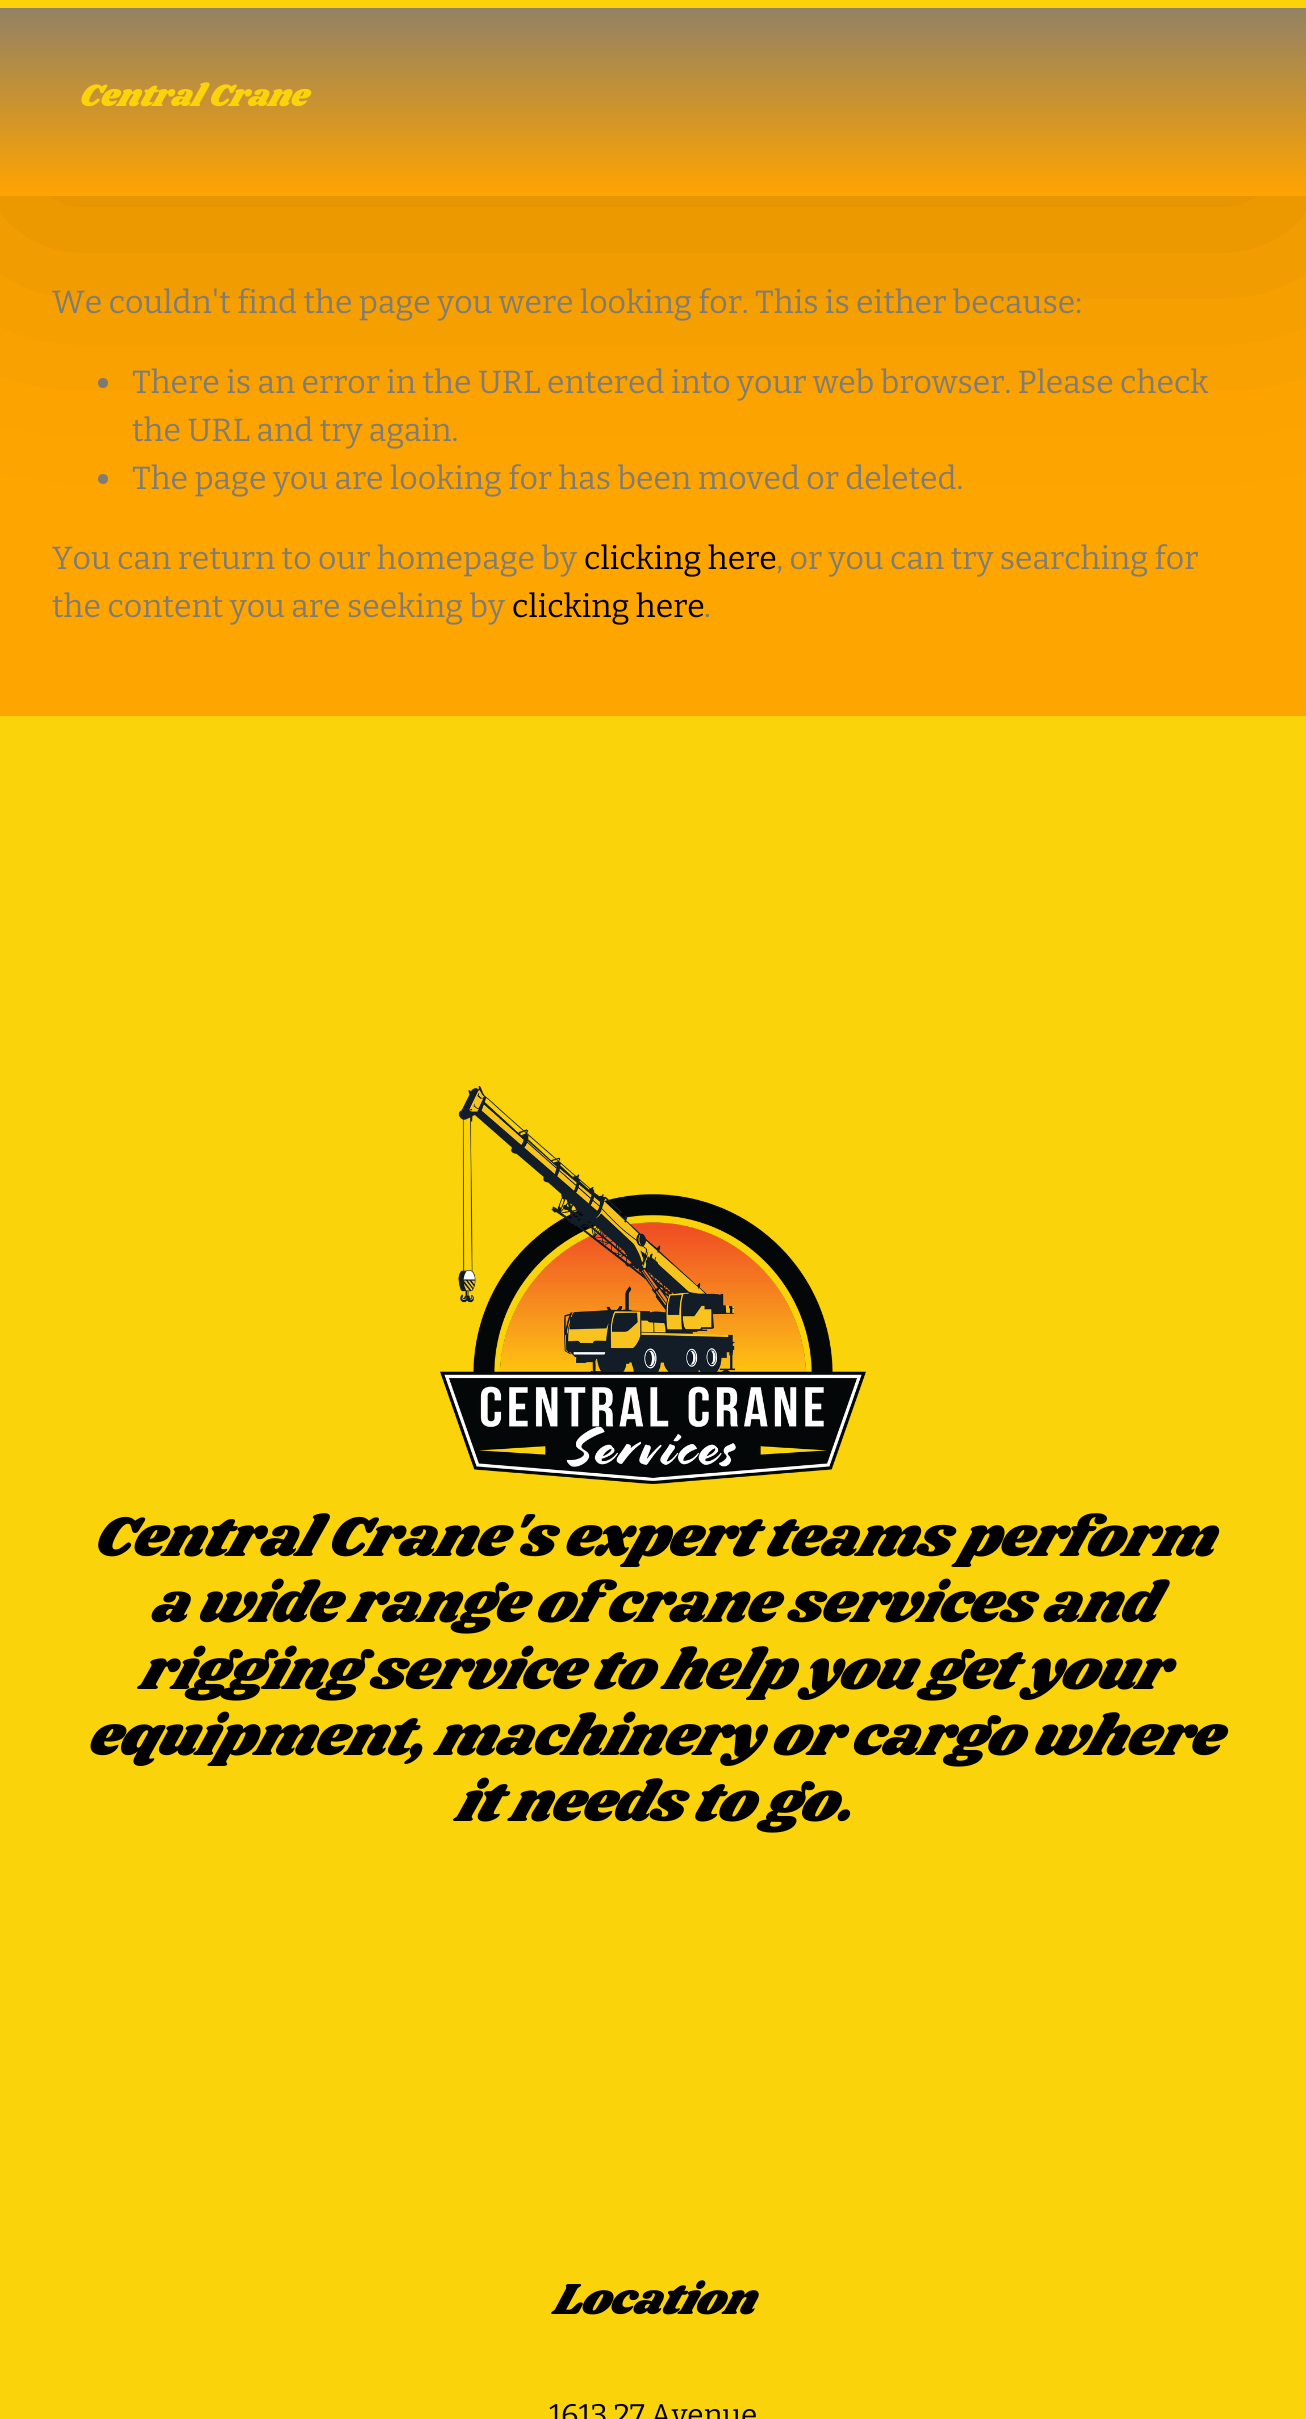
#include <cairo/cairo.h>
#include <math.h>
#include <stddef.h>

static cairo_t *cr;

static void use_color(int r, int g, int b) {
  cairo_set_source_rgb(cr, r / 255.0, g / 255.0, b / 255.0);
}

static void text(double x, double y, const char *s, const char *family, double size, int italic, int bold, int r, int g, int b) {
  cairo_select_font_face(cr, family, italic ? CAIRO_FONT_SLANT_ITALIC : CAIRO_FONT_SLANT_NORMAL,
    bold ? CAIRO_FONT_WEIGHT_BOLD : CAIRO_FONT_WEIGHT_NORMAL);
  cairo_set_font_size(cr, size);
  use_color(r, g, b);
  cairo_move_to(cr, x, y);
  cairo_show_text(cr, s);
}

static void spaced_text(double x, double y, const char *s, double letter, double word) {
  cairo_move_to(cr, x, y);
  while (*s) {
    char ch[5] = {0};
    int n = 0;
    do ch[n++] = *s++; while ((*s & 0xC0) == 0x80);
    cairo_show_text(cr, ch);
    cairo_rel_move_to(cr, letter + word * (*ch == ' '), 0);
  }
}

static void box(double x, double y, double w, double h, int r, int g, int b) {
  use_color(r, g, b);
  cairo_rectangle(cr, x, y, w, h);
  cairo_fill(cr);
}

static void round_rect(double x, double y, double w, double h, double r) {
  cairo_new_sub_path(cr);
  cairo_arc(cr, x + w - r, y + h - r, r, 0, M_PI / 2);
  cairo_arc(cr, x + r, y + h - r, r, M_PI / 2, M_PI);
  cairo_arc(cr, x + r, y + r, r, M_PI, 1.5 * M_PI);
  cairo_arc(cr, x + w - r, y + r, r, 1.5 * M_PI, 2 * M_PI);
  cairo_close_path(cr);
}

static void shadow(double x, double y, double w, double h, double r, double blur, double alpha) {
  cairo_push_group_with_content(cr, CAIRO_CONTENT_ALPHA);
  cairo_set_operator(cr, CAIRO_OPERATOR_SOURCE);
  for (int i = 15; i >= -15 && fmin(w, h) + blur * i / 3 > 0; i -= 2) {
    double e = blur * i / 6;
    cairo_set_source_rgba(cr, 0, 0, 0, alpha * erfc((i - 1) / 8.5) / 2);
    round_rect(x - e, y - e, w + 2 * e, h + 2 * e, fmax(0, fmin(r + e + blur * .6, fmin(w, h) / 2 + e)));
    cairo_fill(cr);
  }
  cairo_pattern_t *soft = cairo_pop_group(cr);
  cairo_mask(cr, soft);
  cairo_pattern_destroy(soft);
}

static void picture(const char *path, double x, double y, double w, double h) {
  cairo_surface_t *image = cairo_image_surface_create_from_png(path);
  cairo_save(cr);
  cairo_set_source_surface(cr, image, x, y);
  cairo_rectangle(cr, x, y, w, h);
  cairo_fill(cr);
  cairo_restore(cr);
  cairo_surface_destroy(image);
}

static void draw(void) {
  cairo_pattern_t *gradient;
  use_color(255, 165, 0);
  cairo_paint(cr);
  use_color(129, 124, 115);
  cairo_arc(cr, 103, 383, 5, 0, 2 * M_PI);
  cairo_fill(cr);
  cairo_arc(cr, 103, 479, 5, 0, 2 * M_PI);
  cairo_fill(cr);
  use_color(0, 0, 0);
  shadow(0, 34, 1306, 196, 0, 138, 0.15);
  box(0, 0, 1306, 8, 251, 211, 11);
  gradient = cairo_pattern_create_linear(653, 0, 653, 196);
  cairo_pattern_add_color_stop_rgba(gradient, 0, 0.557, 0.502, 0.408, 1);
  cairo_pattern_add_color_stop_rgba(gradient, 1, 1, 0.643, 0, 1);
  cairo_set_source(cr, gradient);
  cairo_pattern_destroy(gradient);
  cairo_rectangle(cr, 0, 8, 1306, 188);
  cairo_fill(cr);
  box(0, 716, 1306, 1703, 251, 211, 11);
  picture("img_01.png", 440, 1086, 426, 398);
  cairo_select_font_face(cr, "Shrikhand", CAIRO_FONT_SLANT_ITALIC, CAIRO_FONT_WEIGHT_NORMAL);
  cairo_set_font_size(cr, 32);
  spaced_text(78, 106, "Central Crane", -0.6, 0);
  text(52, 313, "We couldn't find the page you were looking for. This is either because:", "Bitter", 32, 0, 0, 129, 124, 115);
  text(132, 393, "There is an error in the URL entered into your web browser. Please check", "Bitter", 32, 0, 0, 129, 124, 115);
  text(132, 441, "the URL and try again.", "Bitter", 32, 0, 0, 129, 124, 115);
  text(132, 489, "The page you are looking for has been moved or deleted.", "Bitter", 32, 0, 0, 129, 124, 115);
  text(52, 569, "You can return to our homepage by", "Bitter", 32, 0, 0, 129, 124, 115);
  text(584, 569, "clicking here", "Bitter", 32, 0, 0, 0, 0, 0);
  text(776, 569, ", or you can try searching for", "Bitter", 32, 0, 0, 129, 124, 115);
  text(52, 617, "the content you are seeking by", "Bitter", 32, 0, 0, 129, 124, 115);
  text(512, 617, "clicking here", "Bitter", 32, 0, 0, 0, 0, 0);
  text(704, 617, ".", "Bitter", 32, 0, 0, 129, 124, 115);
  cairo_select_font_face(cr, "Shrikhand", CAIRO_FONT_SLANT_ITALIC, CAIRO_FONT_WEIGHT_NORMAL);
  cairo_set_font_size(cr, 57.9);
  use_color(0, 0, 0);
  spaced_text(92, 1556, "Central Crane's expert teams perform", -1.15, 0);
  spaced_text(150, 1622, "a wide range of crane services and", -1.15, 0);
  spaced_text(139, 1689, "rigging service to help you get your", -1.15, 0);
  spaced_text(87, 1755, "equipment, machinery or cargo where", -1.15, 0);
  spaced_text(455, 1821, "it needs to go.", -1.15, 0);
  cairo_set_font_size(cr, 45);
  spaced_text(552, 2314, "Location", -1, 0);
  text(549, 2425, "1613 27 Avenue", "Bitter", 29.75, 0, 0, 0, 0, 0);
}

int main(void) {
  cairo_surface_t *surface = cairo_image_surface_create(CAIRO_FORMAT_RGB24, 1306, 2419);
  cr = cairo_create(surface);
  cairo_font_options_t *options = cairo_font_options_create();
  cairo_font_options_set_hint_metrics(options, CAIRO_HINT_METRICS_OFF);
  cairo_font_options_set_hint_style(options, CAIRO_HINT_STYLE_NONE);
  cairo_set_font_options(cr, options);
  cairo_set_miter_limit(cr, 4);
  draw();
  cairo_surface_write_to_png(surface, "out.png");
  cairo_font_options_destroy(options);
  cairo_destroy(cr);
  cairo_surface_destroy(surface);
  return 0;
}
